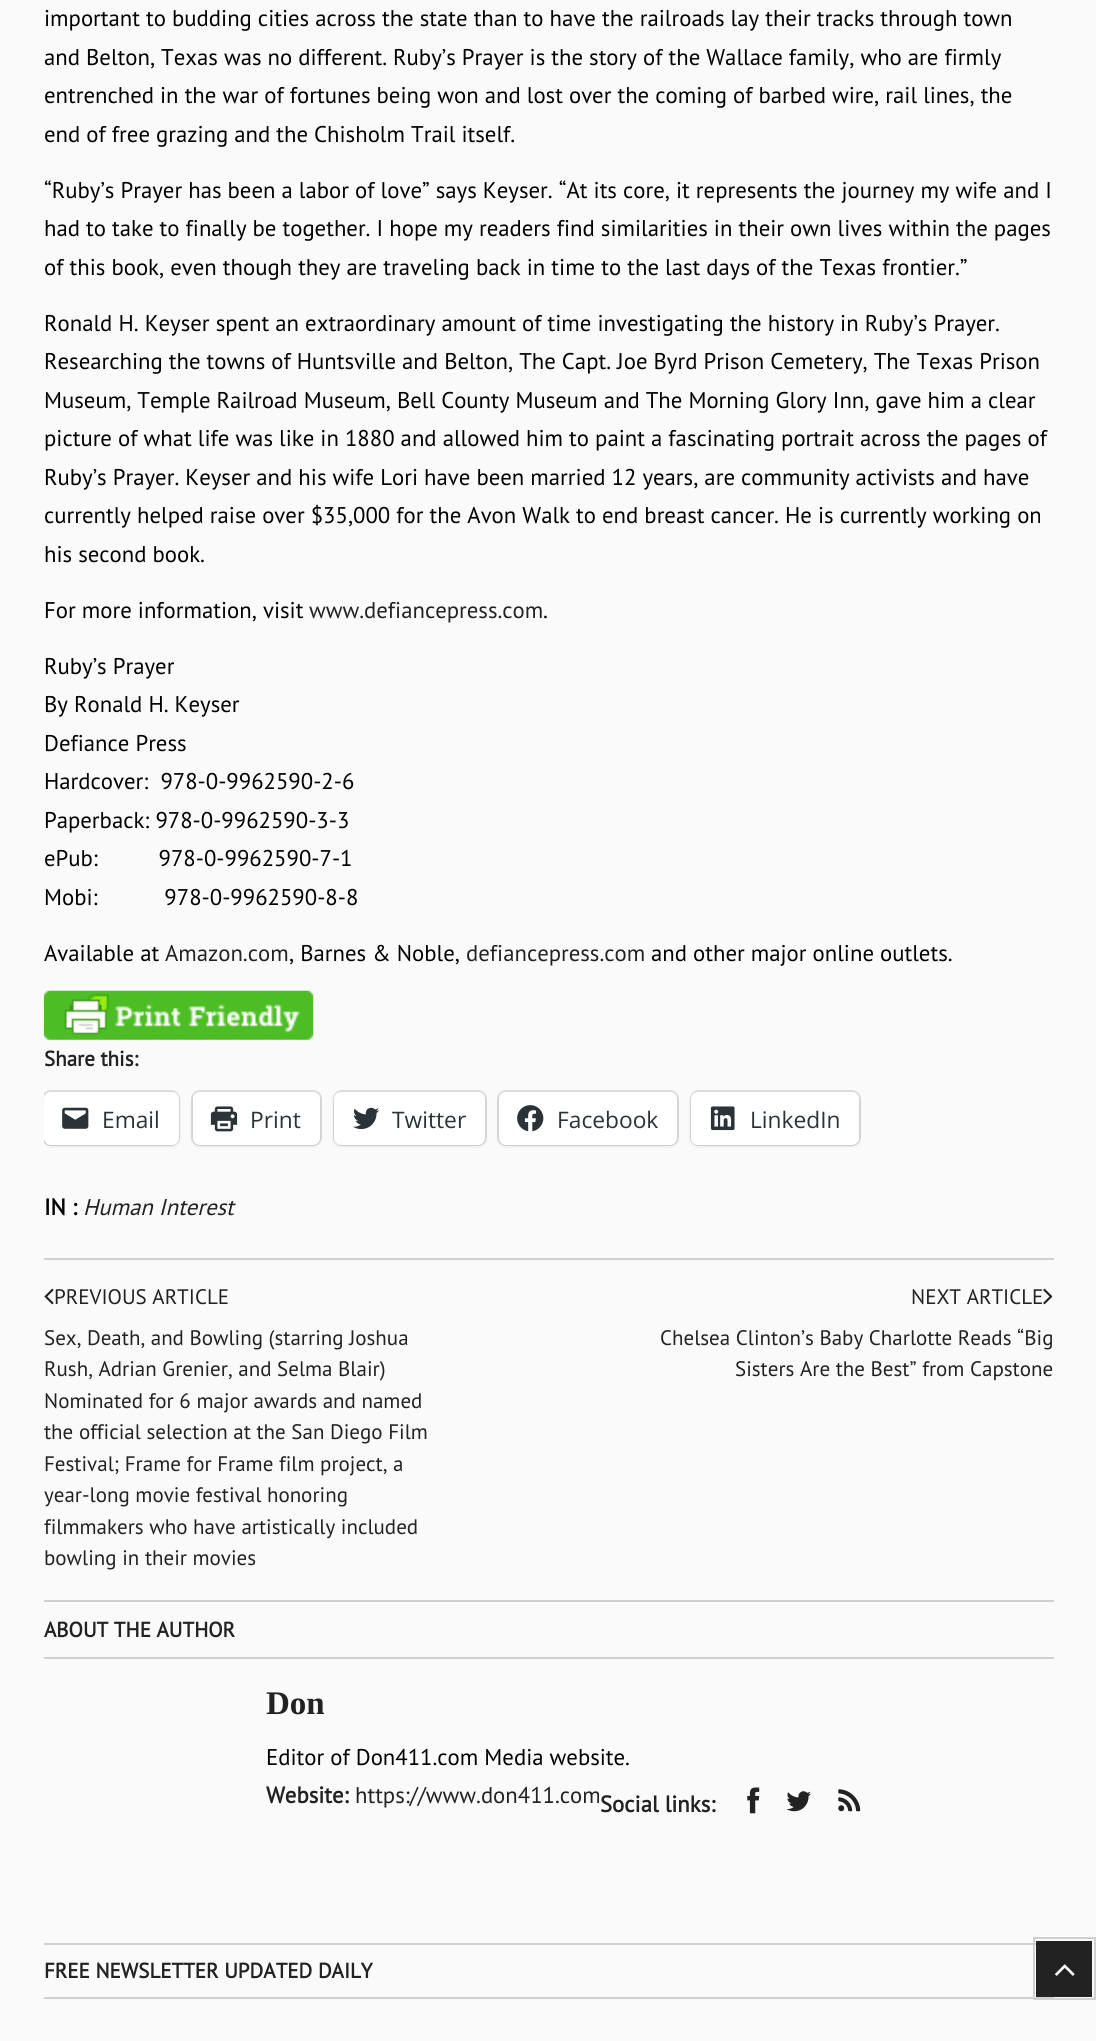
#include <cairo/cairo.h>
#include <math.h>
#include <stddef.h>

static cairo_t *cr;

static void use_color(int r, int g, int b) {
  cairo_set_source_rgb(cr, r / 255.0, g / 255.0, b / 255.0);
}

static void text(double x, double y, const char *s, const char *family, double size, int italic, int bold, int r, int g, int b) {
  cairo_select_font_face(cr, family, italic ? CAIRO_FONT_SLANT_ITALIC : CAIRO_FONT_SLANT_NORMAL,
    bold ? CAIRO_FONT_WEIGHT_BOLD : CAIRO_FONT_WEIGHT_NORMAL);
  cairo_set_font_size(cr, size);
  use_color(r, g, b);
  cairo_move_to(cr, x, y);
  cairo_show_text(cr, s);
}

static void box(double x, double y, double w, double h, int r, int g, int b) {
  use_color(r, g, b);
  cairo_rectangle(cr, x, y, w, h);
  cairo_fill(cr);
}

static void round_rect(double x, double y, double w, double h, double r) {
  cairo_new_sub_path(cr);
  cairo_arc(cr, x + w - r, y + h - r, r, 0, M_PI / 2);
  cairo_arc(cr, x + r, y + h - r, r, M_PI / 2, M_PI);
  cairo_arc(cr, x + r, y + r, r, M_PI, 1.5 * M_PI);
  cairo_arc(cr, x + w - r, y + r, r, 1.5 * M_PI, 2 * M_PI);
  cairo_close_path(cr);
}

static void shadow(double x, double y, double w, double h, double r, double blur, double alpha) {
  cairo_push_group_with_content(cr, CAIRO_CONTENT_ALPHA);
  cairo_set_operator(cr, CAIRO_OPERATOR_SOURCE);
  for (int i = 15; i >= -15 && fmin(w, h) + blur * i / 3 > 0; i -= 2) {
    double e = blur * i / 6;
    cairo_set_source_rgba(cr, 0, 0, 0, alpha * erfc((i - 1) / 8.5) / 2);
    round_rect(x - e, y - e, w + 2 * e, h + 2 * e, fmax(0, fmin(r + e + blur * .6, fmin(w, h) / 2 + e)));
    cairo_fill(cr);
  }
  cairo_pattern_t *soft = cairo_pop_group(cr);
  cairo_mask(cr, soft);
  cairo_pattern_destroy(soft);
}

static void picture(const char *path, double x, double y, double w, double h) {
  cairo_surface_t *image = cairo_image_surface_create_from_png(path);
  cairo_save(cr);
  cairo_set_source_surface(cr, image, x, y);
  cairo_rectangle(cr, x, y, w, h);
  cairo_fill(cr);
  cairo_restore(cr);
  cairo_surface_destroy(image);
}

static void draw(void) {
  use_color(250, 250, 250);
  cairo_paint(cr);
  picture("img_01.png", 43, 990, 271, 50);
  cairo_save(cr);
  cairo_rectangle(cr, 44, 0, 1010, 1582);
  cairo_clip(cr);
  round_rect(43, 1091, 136, 54, 8);
  use_color(220, 220, 220);
  cairo_stroke(cr);
  cairo_restore(cr);
  cairo_save(cr);
  cairo_rectangle(cr, 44, 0, 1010, 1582);
  cairo_clip(cr);
  use_color(0, 0, 0);
  shadow(44, 1094, 135, 52, 7, 2, 0.12);
  cairo_restore(cr);
  use_color(255, 255, 255);
  round_rect(44, 1092, 135, 53, 7);
  cairo_fill(cr);
  picture("img_02.png", 62, 1107, 27, 22);
  round_rect(192, 1091, 129, 54, 8);
  use_color(220, 220, 220);
  cairo_stroke(cr);
  use_color(0, 0, 0);
  shadow(193, 1094, 127, 52, 7, 2, 0.12);
  use_color(255, 255, 255);
  round_rect(193, 1092, 127, 53, 7);
  cairo_fill(cr);
  picture("img_03.png", 210, 1106, 28, 26);
  round_rect(334, 1091, 152, 54, 8);
  use_color(220, 220, 220);
  cairo_stroke(cr);
  use_color(0, 0, 0);
  shadow(334, 1094, 151, 52, 7, 2, 0.12);
  use_color(255, 255, 255);
  round_rect(334, 1092, 151, 53, 7);
  cairo_fill(cr);
  picture("img_04.png", 353, 1107, 26, 23);
  round_rect(498, 1091, 180, 54, 8);
  use_color(220, 220, 220);
  cairo_stroke(cr);
  use_color(0, 0, 0);
  shadow(499, 1094, 178, 52, 7, 2, 0.12);
  use_color(255, 255, 255);
  round_rect(499, 1092, 178, 53, 7);
  cairo_fill(cr);
  picture("img_05.png", 517, 1105, 27, 27);
  round_rect(691, 1091, 169, 54, 8);
  use_color(220, 220, 220);
  cairo_stroke(cr);
  use_color(0, 0, 0);
  shadow(691, 1094, 168, 52, 7, 2, 0.12);
  use_color(255, 255, 255);
  round_rect(691, 1092, 168, 53, 7);
  cairo_fill(cr);
  picture("img_06.png", 710, 1106, 25, 25);
  box(44, 1258, 1010, 2, 208, 208, 208);
  picture("img_07.png", 44, 1288, 10, 17);
  picture("img_08.png", 1043, 1288, 10, 17);
  box(44, 1600, 1010, 2, 208, 208, 208);
  box(44, 1657, 1010, 2, 208, 208, 208);
  picture("img_09.png", 747, 1787, 13, 27);
  picture("img_10.png", 786, 1791, 25, 21);
  picture("img_11.png", 838, 1789, 23, 23);
  box(44, 1943, 992, 2, 208, 208, 208);
  box(44, 1997, 1010, 2, 208, 208, 208);
  cairo_rectangle(cr, 1034, 1938, 61, 61);
  cairo_stroke(cr);
  box(1036, 1941, 56, 56, 34, 34, 34);
  picture("img_12.png", 1055, 1964, 20, 12);
  text(44, 26, "important to budding cities across the state than to have the railroads lay their tracks through town", "PT Sans", 22.75, 0, 0, 0, 0, 0);
  text(44, 65, "and Belton, Texas was no different. Ruby’s Prayer is the story of the Wallace family, who are firmly", "PT Sans", 22.75, 0, 0, 0, 0, 0);
  text(44, 103, "entrenched in the war of fortunes being won and lost over the coming of barbed wire, rail lines, the", "PT Sans", 22.75, 0, 0, 0, 0, 0);
  text(44, 142, "end of free grazing and the Chisholm Trail itself.", "PT Sans", 22.75, 0, 0, 0, 0, 0);
  text(44, 198, "“Ruby’s Prayer has been a labor of love” says Keyser. “At its core, it represents the journey my wife and I", "PT Sans", 22.75, 0, 0, 0, 0, 0);
  text(44, 236, "had to take to finally be together. I hope my readers find similarities in their own lives within the pages", "PT Sans", 22.75, 0, 0, 0, 0, 0);
  text(44, 275, "of this book, even though they are traveling back in time to the last days of the Texas frontier.”", "PT Sans", 22.75, 0, 0, 0, 0, 0);
  text(44, 331, "Ronald H. Keyser spent an extraordinary amount of time investigating the history in Ruby’s Prayer.", "PT Sans", 22.75, 0, 0, 0, 0, 0);
  text(44, 369, "Researching the towns of Huntsville and Belton, The Capt. Joe Byrd Prison Cemetery, The Texas Prison", "PT Sans", 22.75, 0, 0, 0, 0, 0);
  text(44, 408, "Museum, Temple Railroad Museum, Bell County Museum and The Morning Glory Inn, gave him a clear", "PT Sans", 22.75, 0, 0, 0, 0, 0);
  text(44, 446, "picture of what life was like in 1880 and allowed him to paint a fascinating portrait across the pages of", "PT Sans", 22.75, 0, 0, 0, 0, 0);
  text(44, 485, "Ruby’s Prayer. Keyser and his wife Lori have been married 12 years, are community activists and have", "PT Sans", 22.75, 0, 0, 0, 0, 0);
  text(44, 523, "currently helped raise over $35,000 for the Avon Walk to end breast cancer. He is currently working on", "PT Sans", 22.75, 0, 0, 0, 0, 0);
  text(44, 562, "his second book.", "PT Sans", 22.75, 0, 0, 0, 0, 0);
  text(44, 618, "For more information, visit", "PT Sans", 22.75, 0, 0, 0, 0, 0);
  text(309, 618, "www.defiancepress.com", "PT Sans", 22.75, 0, 0, 34, 34, 34);
  text(543, 618, ".", "PT Sans", 22.75, 0, 0, 0, 0, 0);
  text(44, 674, "Ruby’s Prayer", "PT Sans", 22.75, 0, 0, 0, 0, 0);
  text(44, 712, "By Ronald H. Keyser", "PT Sans", 22.75, 0, 0, 0, 0, 0);
  text(44, 751, "Defiance Press", "PT Sans", 22.75, 0, 0, 0, 0, 0);
  text(44, 789, "Hardcover:  978-0-9962590-2-6", "PT Sans", 22.75, 0, 0, 0, 0, 0);
  text(44, 828, "Paperback: 978-0-9962590-3-3", "PT Sans", 22.75, 0, 0, 0, 0, 0);
  text(44, 866, "ePub:          978-0-9962590-7-1", "PT Sans", 22.75, 0, 0, 0, 0, 0);
  text(44, 905, "Mobi:           978-0-9962590-8-8", "PT Sans", 22.75, 0, 0, 0, 0, 0);
  text(44, 961, "Available at", "PT Sans", 22.75, 0, 0, 0, 0, 0);
  text(165, 961, "Amazon.com", "PT Sans", 22.75, 0, 0, 34, 34, 34);
  text(289, 961, ", Barnes & Noble,", "PT Sans", 22.75, 0, 0, 0, 0, 0);
  text(466, 961, "defiancepress.com", "PT Sans", 22.75, 0, 0, 34, 34, 34);
  text(651, 961, "and other major online outlets.", "PT Sans", 22.75, 0, 0, 0, 0, 0);
  text(44, 1066, "Share this:", "PT Sans", 21, 0, 1, 34, 34, 34);
  text(102, 1128, "Email", "Open Sans", 22.75, 0, 0, 44, 51, 56);
  text(250, 1128, "Print", "Open Sans", 22.75, 0, 0, 44, 51, 56);
  text(392, 1128, "Twitter", "Open Sans", 22.75, 0, 0, 44, 51, 56);
  text(557, 1128, "Facebook", "Open Sans", 22.75, 0, 0, 44, 51, 56);
  text(750, 1128, "LinkedIn", "Open Sans", 22.75, 0, 0, 44, 51, 56);
  text(44, 1215, "IN :", "PT Sans", 22.75, 0, 1, 0, 0, 0);
  text(83, 1215, "Human Interest", "PT Sans", 22.75, 1, 0, 34, 34, 34);
  text(54, 1304, "PREVIOUS ARTICLE", "PT Sans", 21, 0, 0, 34, 34, 34);
  text(44, 1345, "Sex, Death, and Bowling (starring Joshua", "PT Sans", 21, 0, 0, 34, 34, 34);
  text(44, 1376, "Rush, Adrian Grenier, and Selma Blair)", "PT Sans", 21, 0, 0, 34, 34, 34);
  text(44, 1408, "Nominated for 6 major awards and named", "PT Sans", 21, 0, 0, 34, 34, 34);
  text(44, 1439, "the official selection at the San Diego Film", "PT Sans", 21, 0, 0, 34, 34, 34);
  text(44, 1471, "Festival; Frame for Frame film project, a", "PT Sans", 21, 0, 0, 34, 34, 34);
  text(44, 1502, "year-long movie festival honoring", "PT Sans", 21, 0, 0, 34, 34, 34);
  text(44, 1534, "filmmakers who have artistically included", "PT Sans", 21, 0, 0, 34, 34, 34);
  text(44, 1565, "bowling in their movies", "PT Sans", 21, 0, 0, 34, 34, 34);
  text(911, 1304, "NEXT ARTICLE", "PT Sans", 21, 0, 0, 34, 34, 34);
  text(660, 1345, "Chelsea Clinton’s Baby Charlotte Reads “Big", "PT Sans", 21, 0, 0, 34, 34, 34);
  text(735, 1376, "Sisters Are the Best” from Capstone", "PT Sans", 21, 0, 0, 34, 34, 34);
  text(44, 1637, "ABOUT THE AUTHOR", "PT Sans", 21, 0, 1, 34, 34, 34);
  text(266, 1714, "Don", "Liberation Serif", 33, 0, 1, 34, 34, 34);
  text(266, 1765, "Editor of Don411.com Media website.", "PT Sans", 22.75, 0, 0, 0, 0, 0);
  text(266, 1803, "Website:", "PT Sans", 22.75, 0, 1, 34, 34, 34);
  text(355, 1803, "https://www.don411.com", "PT Sans", 22.75, 0, 0, 34, 34, 34);
  text(600, 1812, "Social links:", "PT Sans", 22.75, 0, 1, 34, 34, 34);
  text(44, 1978, "FREE NEWSLETTER UPDATED DAILY", "PT Sans", 21, 0, 1, 34, 34, 34);
}

int main(void) {
  cairo_surface_t *surface = cairo_image_surface_create(CAIRO_FORMAT_RGB24, 1096, 2041);
  cr = cairo_create(surface);
  cairo_font_options_t *options = cairo_font_options_create();
  cairo_font_options_set_hint_metrics(options, CAIRO_HINT_METRICS_OFF);
  cairo_font_options_set_hint_style(options, CAIRO_HINT_STYLE_NONE);
  cairo_set_font_options(cr, options);
  cairo_set_miter_limit(cr, 4);
  draw();
  cairo_surface_write_to_png(surface, "out.png");
  cairo_font_options_destroy(options);
  cairo_destroy(cr);
  cairo_surface_destroy(surface);
  return 0;
}
